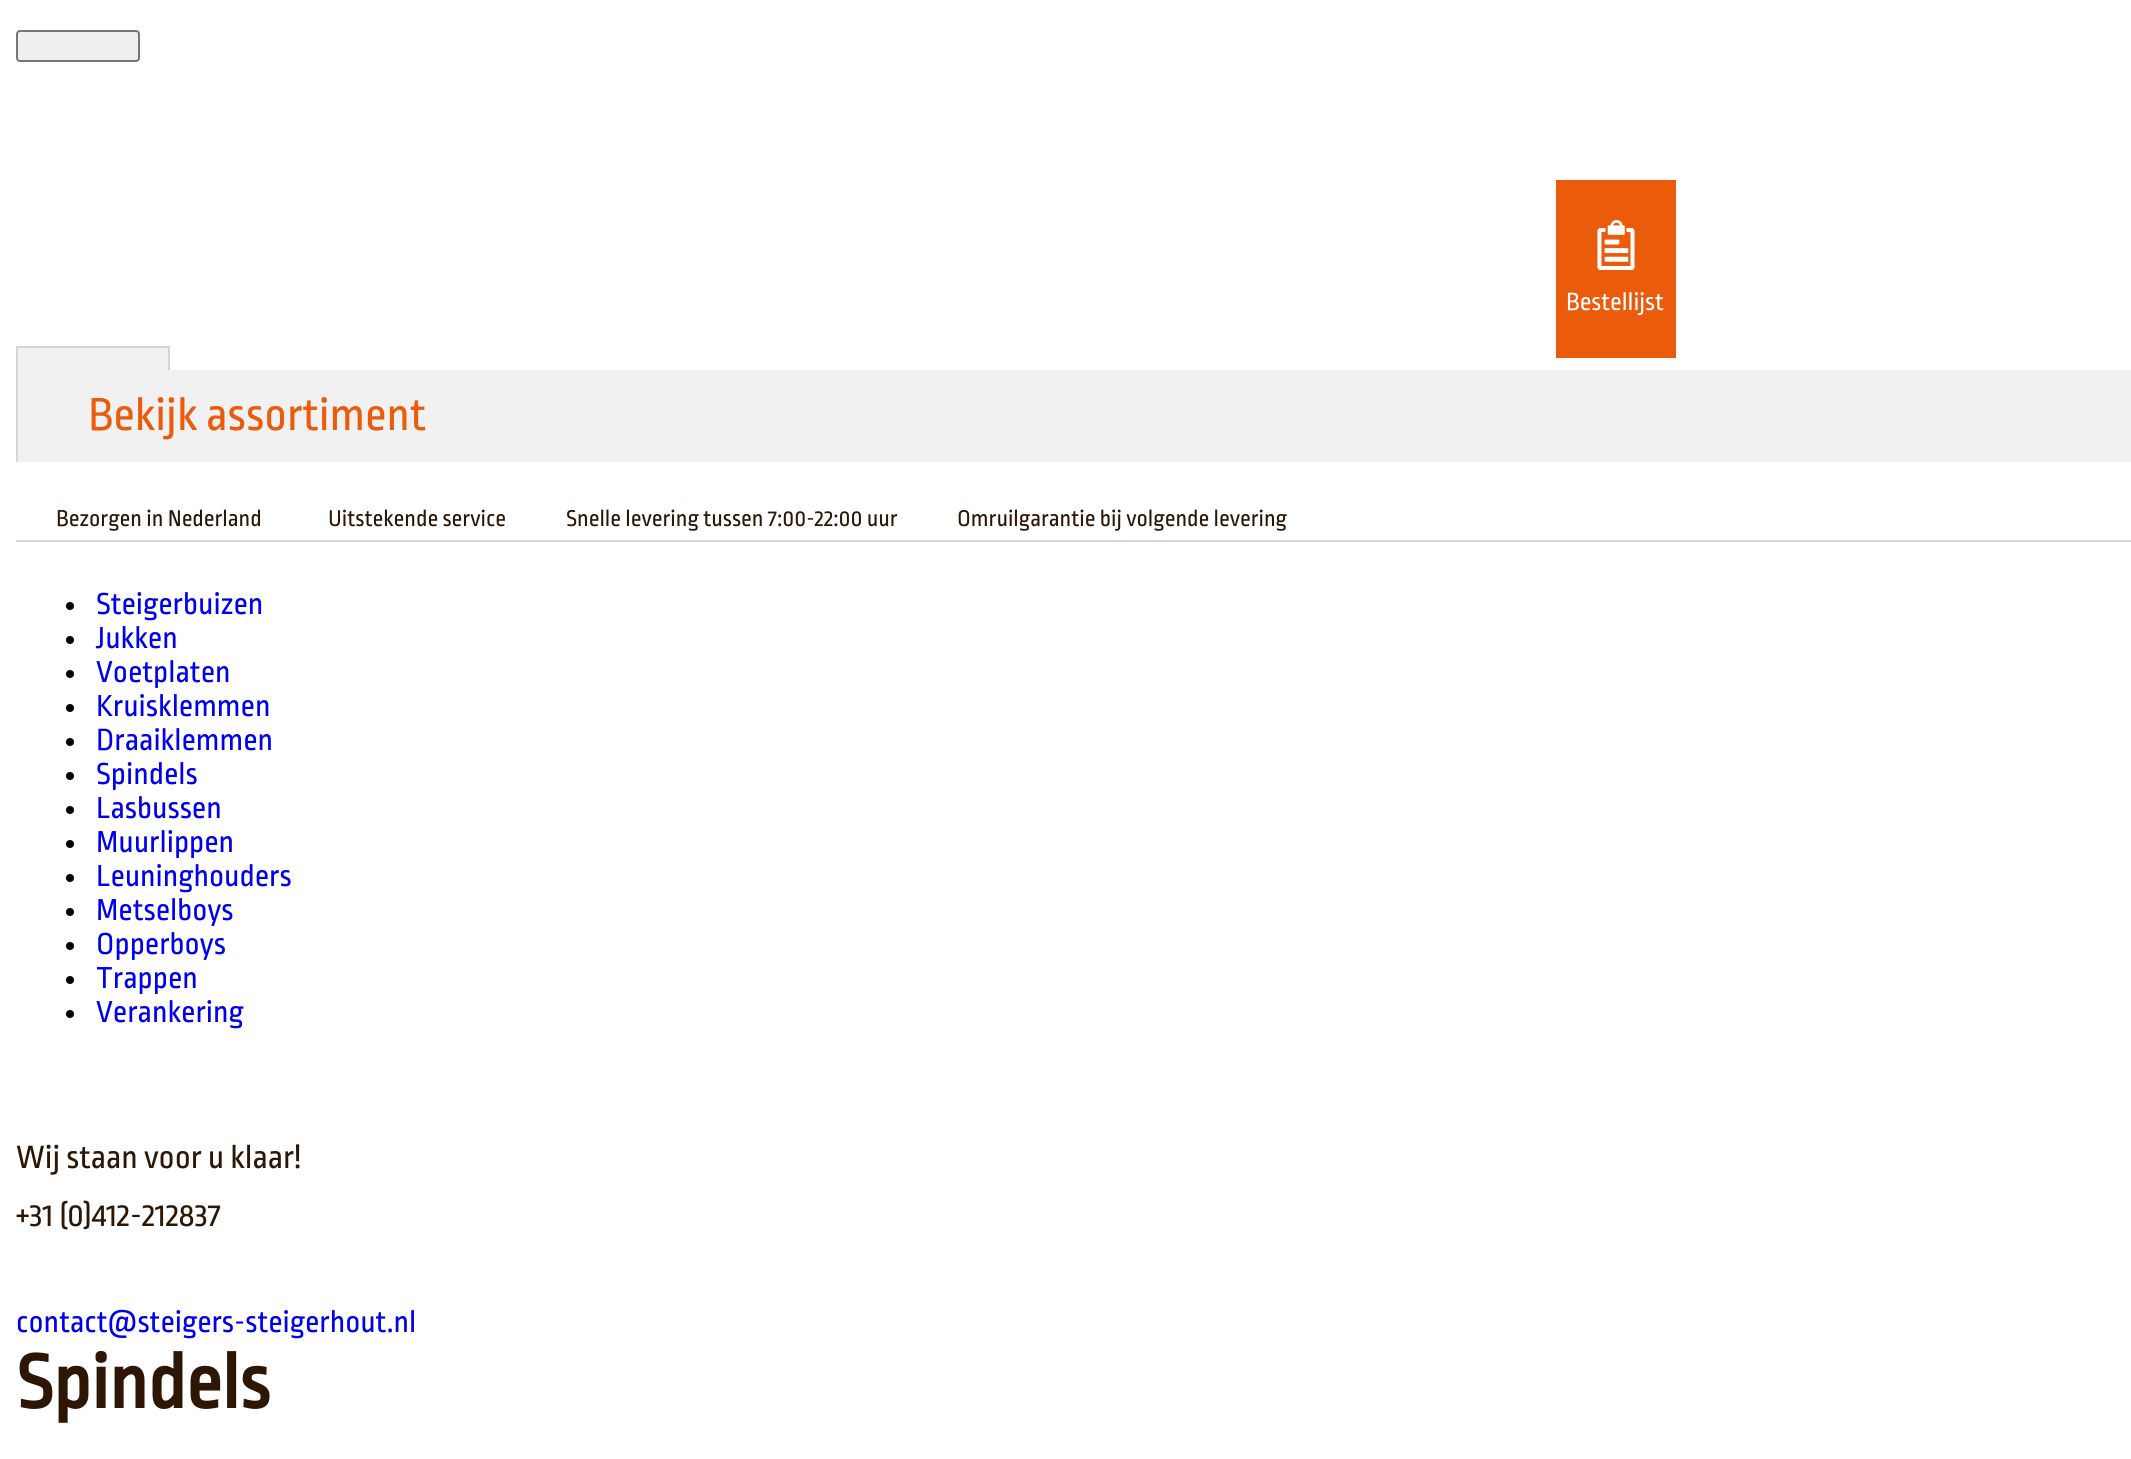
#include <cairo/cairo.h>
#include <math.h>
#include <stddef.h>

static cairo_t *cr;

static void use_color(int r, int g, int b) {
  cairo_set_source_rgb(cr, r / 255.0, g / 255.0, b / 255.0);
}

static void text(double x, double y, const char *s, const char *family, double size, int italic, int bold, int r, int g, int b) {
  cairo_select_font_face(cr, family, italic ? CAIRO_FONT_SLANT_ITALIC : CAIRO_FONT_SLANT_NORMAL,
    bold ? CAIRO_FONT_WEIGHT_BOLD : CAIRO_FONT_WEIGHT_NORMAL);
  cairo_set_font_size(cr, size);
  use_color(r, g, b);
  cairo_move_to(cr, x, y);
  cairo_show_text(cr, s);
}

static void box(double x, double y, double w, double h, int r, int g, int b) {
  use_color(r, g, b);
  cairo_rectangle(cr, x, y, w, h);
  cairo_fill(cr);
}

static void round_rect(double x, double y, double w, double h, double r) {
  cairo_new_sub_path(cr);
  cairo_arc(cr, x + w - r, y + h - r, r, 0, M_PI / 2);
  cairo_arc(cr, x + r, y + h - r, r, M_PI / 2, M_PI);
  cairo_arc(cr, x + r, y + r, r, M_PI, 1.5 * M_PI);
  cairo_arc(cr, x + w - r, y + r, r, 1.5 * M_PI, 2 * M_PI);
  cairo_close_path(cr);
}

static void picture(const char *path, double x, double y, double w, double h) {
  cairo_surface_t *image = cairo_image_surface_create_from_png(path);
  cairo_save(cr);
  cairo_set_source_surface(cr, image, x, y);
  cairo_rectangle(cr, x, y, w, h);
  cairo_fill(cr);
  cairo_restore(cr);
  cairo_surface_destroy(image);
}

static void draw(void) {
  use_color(255, 255, 255);
  cairo_paint(cr);
  use_color(239, 239, 239);
  round_rect(17, 31, 122, 30, 3);
  cairo_fill_preserve(cr);
  use_color(118, 118, 118);
  cairo_stroke(cr);
  box(1556, 180, 120, 178, 234, 91, 12);
  picture("img_01.png", 1597, 220, 38, 50);
  box(16, 540, 2115, 2, 214, 214, 214);
  box(18, 348, 150, 22, 241, 241, 241);
  cairo_rectangle(cr, 17, 347, 152, 68);
  use_color(214, 214, 214);
  cairo_stroke(cr);
  box(18, 370, 2113, 92, 241, 241, 241);
  box(16, 416, 2, 46, 214, 214, 214);
  use_color(1, 1, 1);
  cairo_arc(cr, 70, 606, 4, 0, 2 * M_PI);
  cairo_fill(cr);
  cairo_arc(cr, 70, 640, 4, 0, 2 * M_PI);
  cairo_fill(cr);
  cairo_arc(cr, 70, 674, 4, 0, 2 * M_PI);
  cairo_fill(cr);
  cairo_arc(cr, 70, 708, 4, 0, 2 * M_PI);
  cairo_fill(cr);
  cairo_arc(cr, 70, 742, 4, 0, 2 * M_PI);
  cairo_fill(cr);
  cairo_arc(cr, 70, 776, 4, 0, 2 * M_PI);
  cairo_fill(cr);
  cairo_arc(cr, 70, 810, 4, 0, 2 * M_PI);
  cairo_fill(cr);
  cairo_arc(cr, 70, 844, 4, 0, 2 * M_PI);
  cairo_fill(cr);
  cairo_arc(cr, 70, 878, 4, 0, 2 * M_PI);
  cairo_fill(cr);
  cairo_arc(cr, 70, 912, 4, 0, 2 * M_PI);
  cairo_fill(cr);
  cairo_arc(cr, 70, 946, 4, 0, 2 * M_PI);
  cairo_fill(cr);
  cairo_arc(cr, 70, 980, 4, 0, 2 * M_PI);
  cairo_fill(cr);
  cairo_arc(cr, 70, 1014, 4, 0, 2 * M_PI);
  cairo_fill(cr);
  text(1566, 310, "Bestellijst", "Ropa Sans", 26, 0, 0, 255, 255, 255);
  text(88, 430, "Bekijk assortiment", "Ropa Sans", 48, 0, 0, 234, 91, 12);
  text(56, 526, "Bezorgen in Nederland", "Ropa Sans", 24, 0, 0, 45, 22, 4);
  text(328, 526, "Uitstekende service", "Ropa Sans", 24, 0, 0, 45, 22, 4);
  text(566, 526, "Snelle levering tussen 7:00-22:00 uur", "Ropa Sans", 24, 0, 0, 45, 22, 4);
  text(957, 526, "Omruilgarantie bij volgende levering", "Ropa Sans", 24, 0, 0, 45, 22, 4);
  text(96, 614, "Steigerbuizen", "Ropa Sans", 32, 0, 0, 0, 0, 238);
  text(96, 648, "Jukken", "Ropa Sans", 32, 0, 0, 0, 0, 238);
  text(96, 682, "Voetplaten", "Ropa Sans", 32, 0, 0, 0, 0, 238);
  text(96, 716, "Kruisklemmen", "Ropa Sans", 32, 0, 0, 0, 0, 238);
  text(96, 750, "Draaiklemmen", "Ropa Sans", 32, 0, 0, 0, 0, 238);
  text(96, 784, "Spindels", "Ropa Sans", 32, 0, 0, 0, 0, 238);
  text(96, 818, "Lasbussen", "Ropa Sans", 32, 0, 0, 0, 0, 238);
  text(96, 852, "Muurlippen", "Ropa Sans", 32, 0, 0, 0, 0, 238);
  text(96, 886, "Leuninghouders", "Ropa Sans", 32, 0, 0, 0, 0, 238);
  text(96, 920, "Metselboys", "Ropa Sans", 32, 0, 0, 0, 0, 238);
  text(96, 954, "Opperboys", "Ropa Sans", 32, 0, 0, 0, 0, 238);
  text(96, 988, "Trappen", "Ropa Sans", 32, 0, 0, 0, 0, 238);
  text(96, 1022, "Verankering", "Ropa Sans", 32, 0, 0, 0, 0, 238);
  text(16, 1168, "Wij staan voor u klaar!", "Ropa Sans", 34, 0, 0, 45, 22, 4);
  text(16, 1226, "+31 (0)412-212837", "Ropa Sans", 34, 0, 0, 45, 22, 4);
  text(16, 1332, "contact@steigers-steigerhout.nl", "Ropa Sans", 32, 0, 0, 0, 0, 238);
  text(16, 1408, "Spindels", "Ropa Sans", 80, 0, 1, 45, 22, 4);
}

int main(void) {
  cairo_surface_t *surface = cairo_image_surface_create(CAIRO_FORMAT_RGB24, 2131, 1459);
  cr = cairo_create(surface);
  cairo_font_options_t *options = cairo_font_options_create();
  cairo_font_options_set_hint_metrics(options, CAIRO_HINT_METRICS_OFF);
  cairo_font_options_set_hint_style(options, CAIRO_HINT_STYLE_NONE);
  cairo_set_font_options(cr, options);
  cairo_set_miter_limit(cr, 4);
  draw();
  cairo_surface_write_to_png(surface, "out.png");
  cairo_font_options_destroy(options);
  cairo_destroy(cr);
  cairo_surface_destroy(surface);
  return 0;
}
